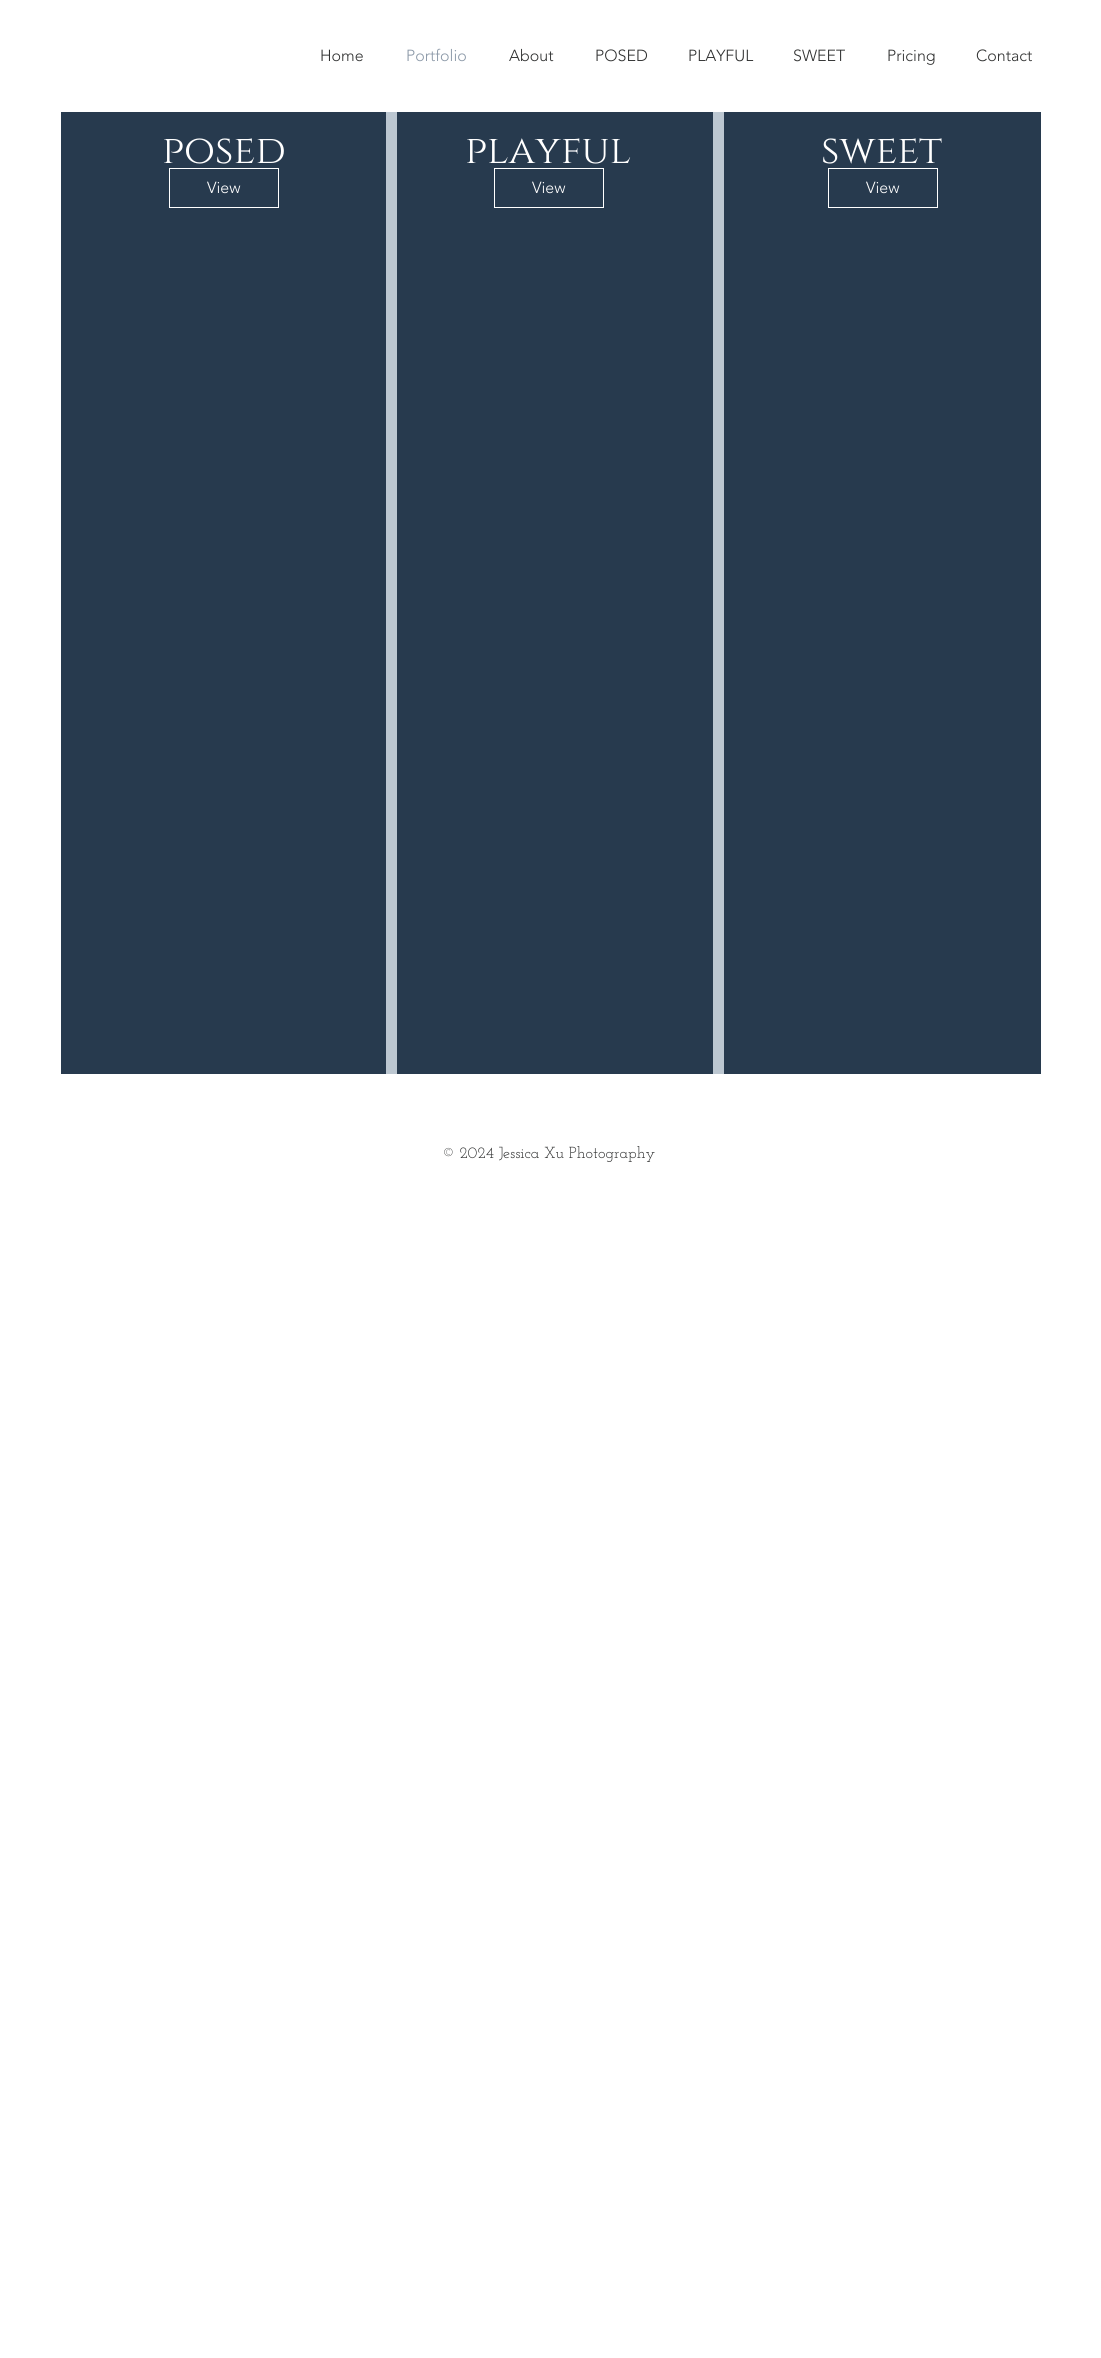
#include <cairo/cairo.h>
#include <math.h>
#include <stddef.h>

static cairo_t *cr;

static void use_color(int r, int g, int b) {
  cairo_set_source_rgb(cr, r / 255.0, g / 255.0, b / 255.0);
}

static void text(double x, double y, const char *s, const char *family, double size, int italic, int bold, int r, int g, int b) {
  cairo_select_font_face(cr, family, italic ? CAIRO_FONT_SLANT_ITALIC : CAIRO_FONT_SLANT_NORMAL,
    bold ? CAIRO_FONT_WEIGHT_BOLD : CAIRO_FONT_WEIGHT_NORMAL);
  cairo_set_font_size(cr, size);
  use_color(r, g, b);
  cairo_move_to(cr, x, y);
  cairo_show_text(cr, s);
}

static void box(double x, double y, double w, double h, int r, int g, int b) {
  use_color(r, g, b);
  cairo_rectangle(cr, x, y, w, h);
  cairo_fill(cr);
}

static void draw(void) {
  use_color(255, 255, 255);
  cairo_paint(cr);
  box(386, 112, 338, 962, 188, 199, 209);
  box(61, 112, 325, 962, 39, 58, 78);
  cairo_rectangle(cr, 169.5, 168.5, 109, 39);
  use_color(255, 255, 255);
  cairo_set_line_width(cr, 1);
  cairo_stroke(cr);
  box(397, 112, 316, 962, 39, 58, 78);
  cairo_rectangle(cr, 494.5, 168.5, 109, 39);
  use_color(255, 255, 255);
  cairo_stroke(cr);
  box(724, 112, 317, 962, 39, 58, 78);
  cairo_rectangle(cr, 828.5, 168.5, 109, 39);
  use_color(255, 255, 255);
  cairo_stroke(cr);
  text(320, 61, "Home", "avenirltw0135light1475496 Light", 16, 0, 0, 48, 49, 49);
  text(406, 61, "Portfolio", "avenirltw0135light1475496 Light", 16, 0, 0, 139, 152, 167);
  text(509, 61, "About", "avenirltw0135light1475496 Light", 16, 0, 0, 48, 49, 49);
  text(595, 61, "POSED", "avenirltw0135light1475496 Light", 16, 0, 0, 48, 49, 49);
  text(688, 61, "PLAYFUL", "avenirltw0135light1475496 Light", 16, 0, 0, 48, 49, 49);
  text(793, 61, "SWEET", "avenirltw0135light1475496 Light", 16, 0, 0, 48, 49, 49);
  text(887, 61, "Pricing", "avenirltw0135light1475496 Light", 16, 0, 0, 48, 49, 49);
  text(976, 61, "Contact", "avenirltw0135light1475496 Light", 16, 0, 0, 48, 49, 49);
  text(162, 163, "posed", "Cinzel", 40, 0, 0, 255, 255, 255);
  text(207, 193, "View", "avenirltw0135light1475496 Light", 16, 0, 0, 255, 255, 255);
  text(465, 163, "playful", "Cinzel", 40, 0, 0, 255, 255, 255);
  text(532, 193, "View", "avenirltw0135light1475496 Light", 16, 0, 0, 255, 255, 255);
  text(821, 163, "sweet", "Cinzel", 40, 0, 0, 255, 255, 255);
  text(866, 193, "View", "avenirltw0135light1475496 Light", 16, 0, 0, 255, 255, 255);
  text(442, 1158, "© 2024 Jessica Xu Photography", "Josefin Slab", 16, 0, 0, 48, 49, 49);
}

int main(void) {
  cairo_surface_t *surface = cairo_image_surface_create(CAIRO_FORMAT_RGB24, 1101, 2358);
  cr = cairo_create(surface);
  cairo_font_options_t *options = cairo_font_options_create();
  cairo_font_options_set_hint_metrics(options, CAIRO_HINT_METRICS_OFF);
  cairo_font_options_set_hint_style(options, CAIRO_HINT_STYLE_NONE);
  cairo_set_font_options(cr, options);
  cairo_set_miter_limit(cr, 4);
  draw();
  cairo_surface_write_to_png(surface, "out.png");
  cairo_font_options_destroy(options);
  cairo_destroy(cr);
  cairo_surface_destroy(surface);
  return 0;
}
